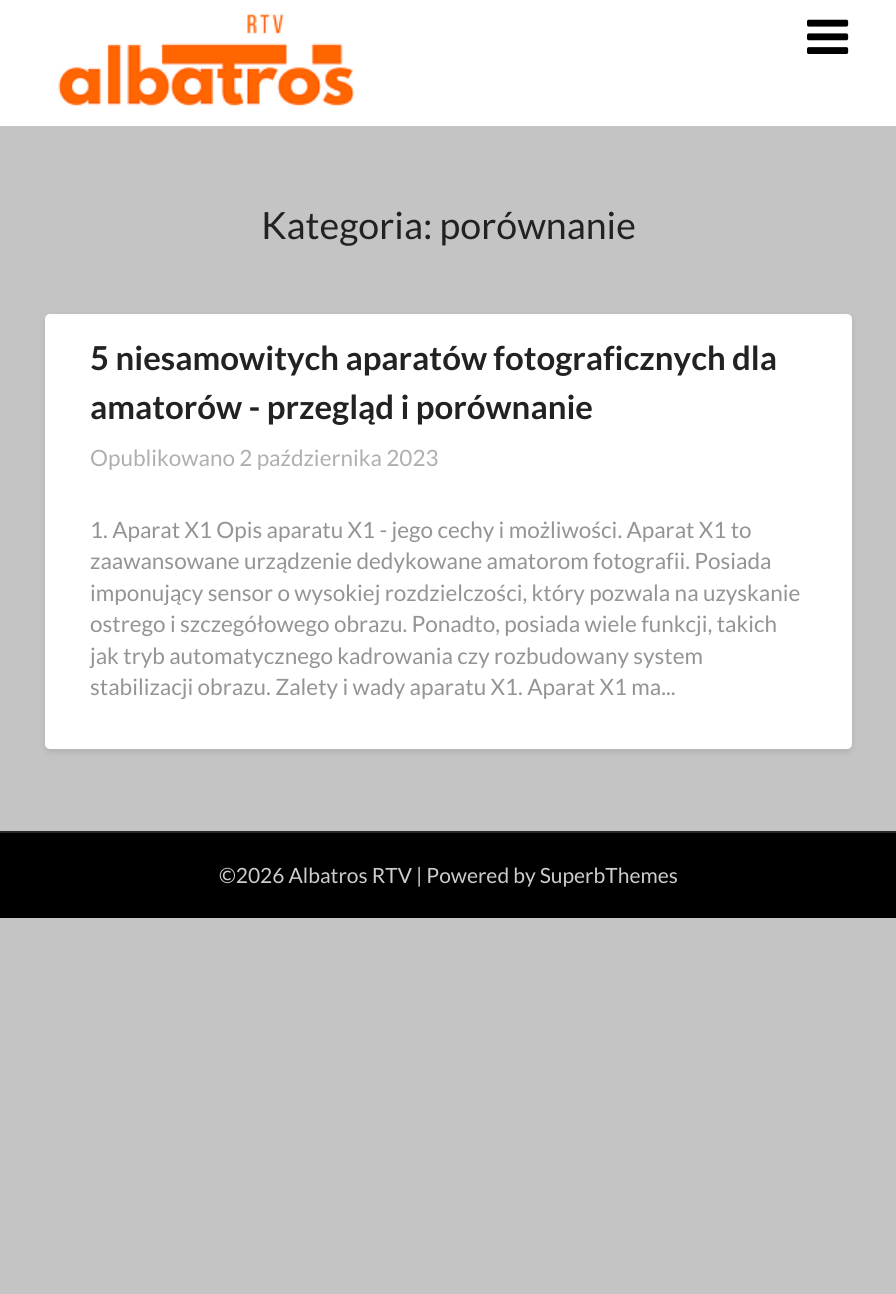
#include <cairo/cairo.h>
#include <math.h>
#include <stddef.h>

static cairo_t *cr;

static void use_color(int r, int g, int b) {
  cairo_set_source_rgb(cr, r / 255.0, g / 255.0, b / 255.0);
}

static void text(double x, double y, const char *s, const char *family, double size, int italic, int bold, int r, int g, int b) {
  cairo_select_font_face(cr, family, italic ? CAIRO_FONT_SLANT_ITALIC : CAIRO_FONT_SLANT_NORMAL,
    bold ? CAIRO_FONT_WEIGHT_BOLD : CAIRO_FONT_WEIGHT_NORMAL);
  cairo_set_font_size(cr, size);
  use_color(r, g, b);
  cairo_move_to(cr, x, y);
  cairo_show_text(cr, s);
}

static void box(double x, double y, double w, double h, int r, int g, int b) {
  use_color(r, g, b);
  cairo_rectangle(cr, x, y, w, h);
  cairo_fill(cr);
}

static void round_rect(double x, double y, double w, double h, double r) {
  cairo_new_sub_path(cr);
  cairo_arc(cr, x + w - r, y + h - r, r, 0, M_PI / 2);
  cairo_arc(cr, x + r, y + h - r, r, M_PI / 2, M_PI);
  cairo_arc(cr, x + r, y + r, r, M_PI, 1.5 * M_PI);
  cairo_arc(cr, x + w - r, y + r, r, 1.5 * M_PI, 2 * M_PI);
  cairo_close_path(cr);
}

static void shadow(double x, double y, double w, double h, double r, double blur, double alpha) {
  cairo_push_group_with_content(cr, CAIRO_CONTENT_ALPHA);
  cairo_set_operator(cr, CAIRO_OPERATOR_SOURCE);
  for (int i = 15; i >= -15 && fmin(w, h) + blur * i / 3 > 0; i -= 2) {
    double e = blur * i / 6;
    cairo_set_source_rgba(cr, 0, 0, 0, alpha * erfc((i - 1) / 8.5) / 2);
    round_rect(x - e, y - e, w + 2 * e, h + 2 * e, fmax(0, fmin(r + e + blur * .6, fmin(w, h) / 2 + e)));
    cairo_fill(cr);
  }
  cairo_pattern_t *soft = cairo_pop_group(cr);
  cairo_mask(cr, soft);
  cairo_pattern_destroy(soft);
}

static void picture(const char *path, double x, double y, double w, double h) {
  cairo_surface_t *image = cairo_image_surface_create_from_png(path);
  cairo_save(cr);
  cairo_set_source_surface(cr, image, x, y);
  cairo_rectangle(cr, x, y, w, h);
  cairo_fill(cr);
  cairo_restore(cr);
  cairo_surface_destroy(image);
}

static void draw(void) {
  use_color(196, 196, 196);
  cairo_paint(cr);
  box(0, 0, 896, 126, 255, 255, 255);
  picture("img_01.png", 58, 13, 297, 94);
  picture("img_02.png", 807, 19, 42, 35);
  use_color(0, 0, 0);
  shadow(45, 317, 807, 435, 5, 3, 0.1);
  use_color(255, 255, 255);
  round_rect(45, 314, 807, 435, 5);
  cairo_fill(cr);
  box(0, 833, 896, 85, 0, 0, 0);
  box(0, 831, 896, 2, 41, 41, 41);
  text(261, 239, "Kategoria: porównanie", "Lato", 37.5, 0, 0, 34, 34, 34);
  text(90, 370, "5 niesamowitych aparatów fotograficznych dla", "Lato", 33, 0, 1, 34, 34, 34);
  text(90, 419, "amatorów - przegląd i porównanie", "Lato", 33, 0, 1, 34, 34, 34);
  text(90, 466, "Opublikowano 2 października 2023", "Lato", 22.5, 0, 0, 175, 175, 175);
  text(90, 538, "1. Aparat X1 Opis aparatu X1 - jego cechy i możliwości. Aparat X1 to", "Lato", 22.5, 0, 0, 148, 148, 148);
  text(90, 569, "zaawansowane urządzenie dedykowane amatorom fotografii. Posiada", "Lato", 22.5, 0, 0, 148, 148, 148);
  text(90, 601, "imponujący sensor o wysokiej rozdzielczości, który pozwala na uzyskanie", "Lato", 22.5, 0, 0, 148, 148, 148);
  text(90, 632, "ostrego i szczegółowego obrazu. Ponadto, posiada wiele funkcji, takich", "Lato", 22.5, 0, 0, 148, 148, 148);
  text(90, 664, "jak tryb automatycznego kadrowania czy rozbudowany system", "Lato", 22.5, 0, 0, 148, 148, 148);
  text(90, 695, "stabilizacji obrazu. Zalety i wady aparatu X1. Aparat X1 ma...", "Lato", 22.5, 0, 0, 148, 148, 148);
  text(219, 883, "©2026 Albatros RTV | Powered by SuperbThemes", "Lato", 21, 0, 0, 204, 204, 204);
}

int main(void) {
  cairo_surface_t *surface = cairo_image_surface_create(CAIRO_FORMAT_RGB24, 896, 1294);
  cr = cairo_create(surface);
  cairo_font_options_t *options = cairo_font_options_create();
  cairo_font_options_set_hint_metrics(options, CAIRO_HINT_METRICS_OFF);
  cairo_font_options_set_hint_style(options, CAIRO_HINT_STYLE_NONE);
  cairo_set_font_options(cr, options);
  cairo_set_miter_limit(cr, 4);
  draw();
  cairo_surface_write_to_png(surface, "out.png");
  cairo_font_options_destroy(options);
  cairo_destroy(cr);
  cairo_surface_destroy(surface);
  return 0;
}
